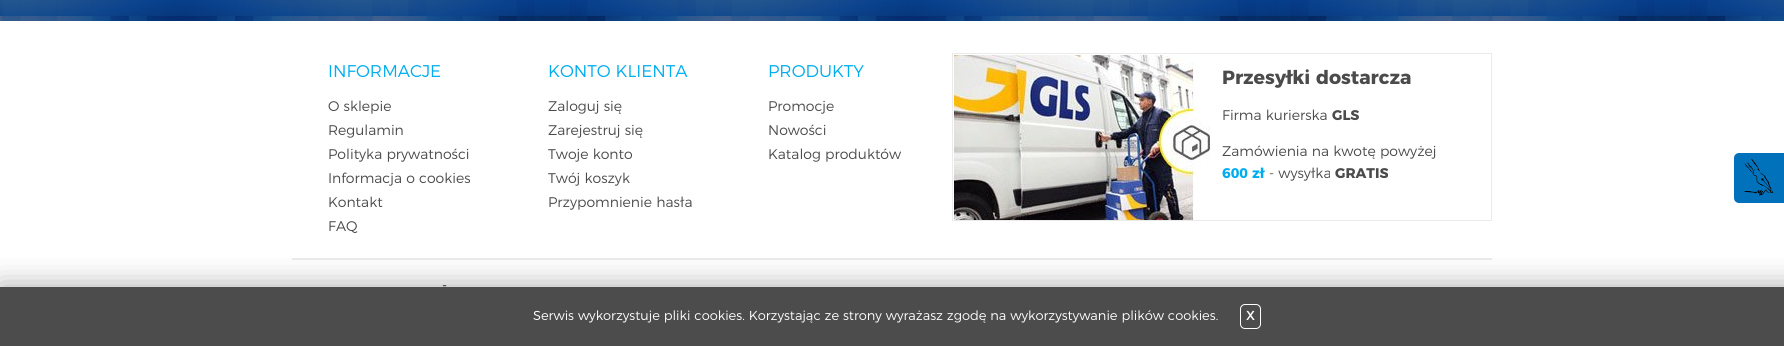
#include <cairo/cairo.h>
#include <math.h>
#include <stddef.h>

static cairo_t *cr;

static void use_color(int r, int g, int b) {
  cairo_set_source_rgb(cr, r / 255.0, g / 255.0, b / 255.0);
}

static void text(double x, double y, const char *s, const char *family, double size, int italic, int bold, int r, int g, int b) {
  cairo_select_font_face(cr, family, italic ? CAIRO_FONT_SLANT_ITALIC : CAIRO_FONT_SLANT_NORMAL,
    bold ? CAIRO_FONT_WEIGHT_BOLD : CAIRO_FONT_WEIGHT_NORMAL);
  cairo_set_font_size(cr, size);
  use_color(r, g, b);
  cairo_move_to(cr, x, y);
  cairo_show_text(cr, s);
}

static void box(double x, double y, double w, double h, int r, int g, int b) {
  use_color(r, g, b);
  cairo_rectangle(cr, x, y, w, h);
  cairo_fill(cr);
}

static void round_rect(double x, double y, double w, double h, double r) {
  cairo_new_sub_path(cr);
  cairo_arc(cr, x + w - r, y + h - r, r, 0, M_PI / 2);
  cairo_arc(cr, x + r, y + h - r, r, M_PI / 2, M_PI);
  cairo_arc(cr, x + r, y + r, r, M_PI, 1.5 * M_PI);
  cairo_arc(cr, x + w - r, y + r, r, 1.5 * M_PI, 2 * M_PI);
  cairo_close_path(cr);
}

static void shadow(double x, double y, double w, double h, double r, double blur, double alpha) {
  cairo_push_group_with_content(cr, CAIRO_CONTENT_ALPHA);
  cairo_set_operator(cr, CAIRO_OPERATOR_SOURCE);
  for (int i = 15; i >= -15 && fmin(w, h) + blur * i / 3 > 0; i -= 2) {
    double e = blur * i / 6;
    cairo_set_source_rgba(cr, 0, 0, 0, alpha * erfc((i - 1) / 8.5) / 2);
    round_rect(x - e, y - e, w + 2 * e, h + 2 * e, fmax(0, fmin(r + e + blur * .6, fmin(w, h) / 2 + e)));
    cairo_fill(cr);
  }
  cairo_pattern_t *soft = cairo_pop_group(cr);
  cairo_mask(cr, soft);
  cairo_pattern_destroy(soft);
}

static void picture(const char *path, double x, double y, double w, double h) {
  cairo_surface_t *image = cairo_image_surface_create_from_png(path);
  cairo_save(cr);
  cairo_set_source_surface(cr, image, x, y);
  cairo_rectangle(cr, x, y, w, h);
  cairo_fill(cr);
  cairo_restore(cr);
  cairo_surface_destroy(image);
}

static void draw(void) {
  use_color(255, 255, 255);
  cairo_paint(cr);
  picture("img_01.png", 292, 0, 1200, 21);
  picture("img_02.png", 0, 0, 292, 21);
  picture("img_03.png", 1492, 0, 292, 21);
  picture("img_04.png", 954, 55, 256, 165);
  cairo_rectangle(cr, 952.5, 53.5, 539, 167);
  use_color(235, 235, 235);
  cairo_set_line_width(cr, 1);
  cairo_stroke(cr);
  box(292, 258, 1200, 2, 237, 236, 236);
  use_color(1, 113, 187);
  round_rect(1734, 153, 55, 50, 5);
  cairo_fill(cr);
  picture("img_05.png", 1744, 158, 30, 38);
  cairo_save(cr);
  cairo_rectangle(cr, 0, 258, 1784, 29);
  cairo_clip(cr);
  use_color(128, 128, 128);
  shadow(0, 287, 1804, 59, 0, 15, 0.7);
  cairo_restore(cr);
  cairo_set_source_rgba(cr, 0, 0, 0, 0.7);
  cairo_rectangle(cr, 0, 287, 1784, 59);
  cairo_fill(cr);
  round_rect(1240.5, 304.5, 20, 24, 4.5);
  use_color(255, 255, 255);
  cairo_stroke(cr);
  text(328, 77, "INFORMACJE", "Montserrat Light", 17, 0, 0, 0, 173, 239);
  text(328, 111, "O sklepie", "Montserrat Light", 14, 0, 0, 75, 75, 75);
  text(328, 135, "Regulamin", "Montserrat Light", 14, 0, 0, 75, 75, 75);
  text(328, 159, "Polityka prywatności", "Montserrat Light", 14, 0, 0, 75, 75, 75);
  text(328, 183, "Informacja o cookies", "Montserrat Light", 14, 0, 0, 75, 75, 75);
  text(328, 207, "Kontakt", "Montserrat Light", 14, 0, 0, 75, 75, 75);
  text(328, 231, "FAQ", "Montserrat Light", 14, 0, 0, 75, 75, 75);
  text(548, 77, "KONTO KLIENTA", "Montserrat Light", 17, 0, 0, 0, 173, 239);
  text(548, 111, "Zaloguj się", "Montserrat Light", 14, 0, 0, 75, 75, 75);
  text(548, 135, "Zarejestruj się", "Montserrat Light", 14, 0, 0, 75, 75, 75);
  text(548, 159, "Twoje konto", "Montserrat Light", 14, 0, 0, 75, 75, 75);
  text(548, 183, "Twój koszyk", "Montserrat Light", 14, 0, 0, 75, 75, 75);
  text(548, 207, "Przypomnienie hasła", "Montserrat Light", 14, 0, 0, 75, 75, 75);
  text(768, 77, "PRODUKTY", "Montserrat Light", 17, 0, 0, 0, 173, 239);
  text(768, 111, "Promocje", "Montserrat Light", 14, 0, 0, 75, 75, 75);
  text(768, 135, "Nowości", "Montserrat Light", 14, 0, 0, 75, 75, 75);
  text(768, 159, "Katalog produktów", "Montserrat Light", 14, 0, 0, 75, 75, 75);
  text(1222, 84, "Przesyłki dostarcza", "Montserrat", 19, 0, 1, 75, 75, 75);
  text(1222, 120, "Firma kurierska", "Montserrat Light", 14, 0, 0, 75, 75, 75);
  text(1332, 120, "GLS", "Montserrat", 14, 0, 1, 75, 75, 75);
  text(1222, 156, "Zamówienia na kwotę powyżej", "Montserrat Light", 14, 0, 0, 75, 75, 75);
  text(1222, 178, "600 zł", "Montserrat", 14, 0, 1, 0, 173, 239);
  text(1269, 178, "- wysyłka", "Montserrat Light", 14, 0, 0, 75, 75, 75);
  text(1335, 178, "GRATIS", "Montserrat", 14, 0, 1, 75, 75, 75);
  text(442, 290, "-", "Montserrat Light", 14, 0, 0, 24, 14, 10);
  text(533, 320, "Serwis wykorzystuje pliki cookies. Korzystając ze strony wyrażasz zgodę na wykorzystywanie plików cookies.", "Montserrat Light", 13, 0, 0, 255, 255, 255);
  text(1246, 320, "X", "Montserrat", 13, 0, 0, 255, 255, 255);
}

int main(void) {
  cairo_surface_t *surface = cairo_image_surface_create(CAIRO_FORMAT_RGB24, 1784, 346);
  cr = cairo_create(surface);
  cairo_font_options_t *options = cairo_font_options_create();
  cairo_font_options_set_hint_metrics(options, CAIRO_HINT_METRICS_OFF);
  cairo_font_options_set_hint_style(options, CAIRO_HINT_STYLE_NONE);
  cairo_set_font_options(cr, options);
  cairo_set_miter_limit(cr, 4);
  draw();
  cairo_surface_write_to_png(surface, "out.png");
  cairo_font_options_destroy(options);
  cairo_destroy(cr);
  cairo_surface_destroy(surface);
  return 0;
}
